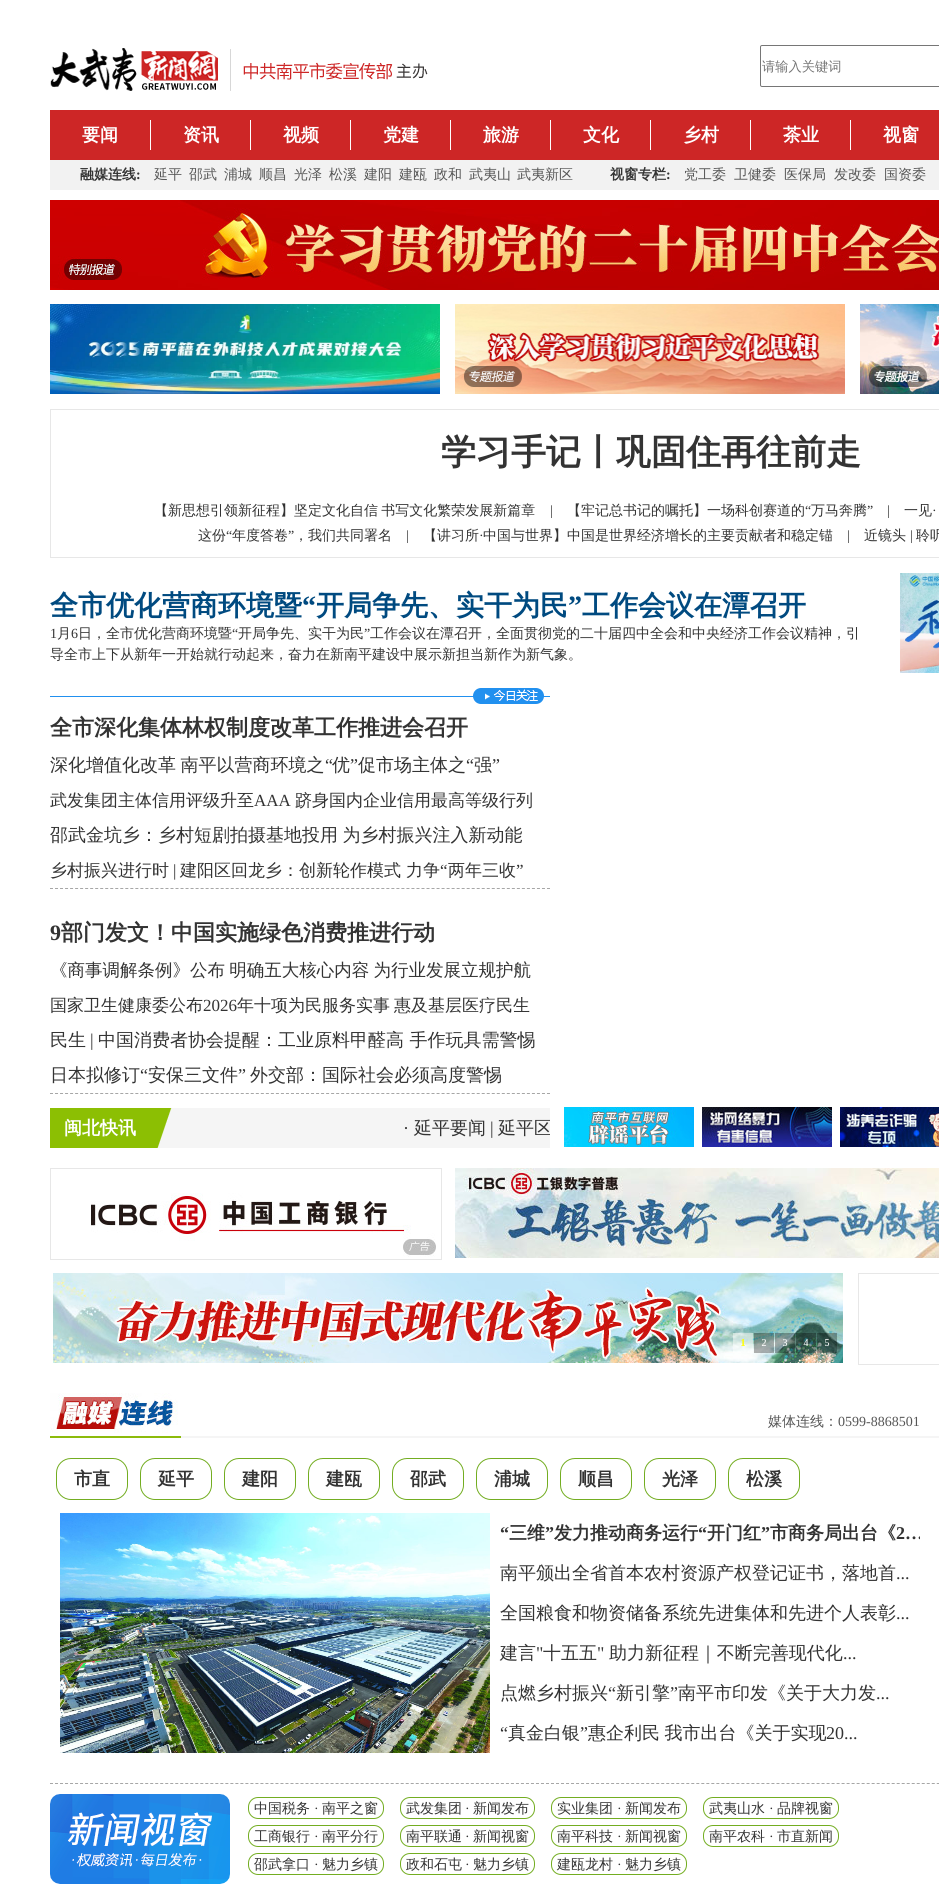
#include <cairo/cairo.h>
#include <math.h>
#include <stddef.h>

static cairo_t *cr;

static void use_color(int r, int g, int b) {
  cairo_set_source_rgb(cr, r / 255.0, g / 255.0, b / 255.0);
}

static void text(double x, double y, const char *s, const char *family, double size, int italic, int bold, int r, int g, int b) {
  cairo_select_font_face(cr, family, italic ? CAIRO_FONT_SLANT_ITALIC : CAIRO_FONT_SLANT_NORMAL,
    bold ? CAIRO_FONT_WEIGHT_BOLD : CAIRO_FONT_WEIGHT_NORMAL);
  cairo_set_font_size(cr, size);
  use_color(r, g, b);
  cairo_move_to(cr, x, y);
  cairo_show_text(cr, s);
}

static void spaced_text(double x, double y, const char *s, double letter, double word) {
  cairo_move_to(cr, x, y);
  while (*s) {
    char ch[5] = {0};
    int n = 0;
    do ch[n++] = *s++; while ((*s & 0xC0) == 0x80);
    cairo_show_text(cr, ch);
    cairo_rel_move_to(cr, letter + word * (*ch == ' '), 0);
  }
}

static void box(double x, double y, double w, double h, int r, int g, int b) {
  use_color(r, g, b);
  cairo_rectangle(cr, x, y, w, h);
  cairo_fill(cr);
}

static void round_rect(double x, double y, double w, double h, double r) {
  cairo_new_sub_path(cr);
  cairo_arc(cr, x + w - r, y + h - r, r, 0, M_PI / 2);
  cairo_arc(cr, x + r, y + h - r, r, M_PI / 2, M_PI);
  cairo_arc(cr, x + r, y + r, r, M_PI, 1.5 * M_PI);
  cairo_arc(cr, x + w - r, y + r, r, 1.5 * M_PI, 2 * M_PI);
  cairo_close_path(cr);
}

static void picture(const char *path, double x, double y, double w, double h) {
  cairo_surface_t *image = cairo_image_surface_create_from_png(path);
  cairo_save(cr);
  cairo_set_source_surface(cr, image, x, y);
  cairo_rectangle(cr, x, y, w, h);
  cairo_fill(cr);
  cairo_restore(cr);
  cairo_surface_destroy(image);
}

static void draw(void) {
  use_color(255, 255, 255);
  cairo_paint(cr);
  picture("img_01.png", 50, 48, 168, 43);
  picture("img_02.png", 230, 49, 198, 42);
  round_rect(760.5, 45.5, 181, 41, 1.5);
  use_color(118, 118, 118);
  cairo_set_line_width(cr, 1);
  cairo_stroke(cr);
  box(50, 110, 889, 50, 205, 38, 38);
  box(150, 120, 1, 30, 255, 255, 255);
  box(250, 120, 1, 30, 255, 255, 255);
  box(350, 120, 1, 30, 255, 255, 255);
  box(450, 120, 1, 30, 255, 255, 255);
  box(550, 120, 1, 30, 255, 255, 255);
  box(650, 120, 1, 30, 255, 255, 255);
  box(750, 120, 1, 30, 255, 255, 255);
  box(850, 120, 1, 30, 255, 255, 255);
  box(50, 160, 889, 30, 242, 242, 242);
  picture("img_03.png", 50, 200, 889, 90);
  picture("img_04.png", 50, 304, 390, 90);
  picture("img_05.png", 455, 304, 390, 90);
  picture("img_06.png", 860, 304, 79, 90);
  cairo_rectangle(cr, 50.5, 409.5, 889, 148);
  use_color(231, 231, 231);
  cairo_stroke(cr);
  picture("img_07.png", 900, 573, 39, 100);
  picture("img_08.png", 50, 688, 500, 16);
  cairo_new_path(cr);
  cairo_move_to(cr, 50, 888.5);
  cairo_line_to(cr, 550, 888.5);
  use_color(166, 166, 166);
  cairo_set_dash(cr, (double[]){3, 2.02}, 2, 0);
  cairo_stroke(cr);
  cairo_new_path(cr);
  cairo_move_to(cr, 50, 1093.5);
  cairo_line_to(cr, 550, 1093.5);
  cairo_stroke(cr);
  picture("img_09.png", 50, 1108, 500, 40);
  picture("img_10.png", 564, 1107, 130, 40);
  picture("img_11.png", 702, 1107, 130, 40);
  picture("img_12.png", 840, 1107, 99, 40);
  cairo_rectangle(cr, 50.5, 1168.5, 391, 91);
  use_color(231, 231, 231);
  cairo_set_dash(cr, NULL, 0, 0);
  cairo_stroke(cr);
  picture("img_13.png", 91, 1193, 345, 64);
  picture("img_14.png", 455, 1168, 484, 90);
  picture("img_15.png", 53, 1273, 790, 90);
  cairo_rectangle(cr, 858.5, 1273.5, 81, 91);
  cairo_stroke(cr);
  picture("img_16.png", 50, 1436, 889, 2);
  picture("img_17.png", 50, 1393, 128, 40);
  cairo_new_path(cr);
  cairo_move_to(cr, 50, 1783.5);
  cairo_line_to(cr, 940, 1783.5);
  use_color(166, 166, 166);
  cairo_set_dash(cr, (double[]){3, 2.01}, 2, 0);
  cairo_stroke(cr);
  round_rect(56.5, 1458.5, 71, 41, 14.5);
  use_color(115, 173, 33);
  cairo_set_dash(cr, NULL, 0, 0);
  cairo_stroke(cr);
  round_rect(140.5, 1458.5, 71, 41, 14.5);
  cairo_stroke(cr);
  round_rect(224.5, 1458.5, 71, 41, 14.5);
  cairo_stroke(cr);
  round_rect(308.5, 1458.5, 71, 41, 14.5);
  cairo_stroke(cr);
  round_rect(392.5, 1458.5, 71, 41, 14.5);
  cairo_stroke(cr);
  round_rect(476.5, 1458.5, 71, 41, 14.5);
  cairo_stroke(cr);
  round_rect(560.5, 1458.5, 71, 41, 14.5);
  cairo_stroke(cr);
  round_rect(644.5, 1458.5, 71, 41, 14.5);
  cairo_stroke(cr);
  round_rect(728.5, 1458.5, 71, 41, 14.5);
  cairo_stroke(cr);
  picture("img_18.png", 60, 1513, 430, 240);
  picture("img_19.png", 50, 1794, 180, 90);
  round_rect(248.5, 1797.5, 135, 21, 9.5);
  cairo_stroke(cr);
  round_rect(400.5, 1797.5, 134, 21, 9.5);
  cairo_stroke(cr);
  round_rect(551.5, 1797.5, 135, 21, 9.5);
  cairo_stroke(cr);
  round_rect(703.5, 1797.5, 135, 21, 9.5);
  cairo_stroke(cr);
  round_rect(248.5, 1825.5, 135, 21, 9.5);
  cairo_stroke(cr);
  round_rect(400.5, 1825.5, 134, 21, 9.5);
  cairo_stroke(cr);
  round_rect(551.5, 1825.5, 135, 21, 9.5);
  cairo_stroke(cr);
  round_rect(703.5, 1825.5, 135, 21, 9.5);
  cairo_stroke(cr);
  round_rect(248.5, 1853.5, 135, 21, 9.5);
  cairo_stroke(cr);
  round_rect(400.5, 1853.5, 134, 21, 9.5);
  cairo_stroke(cr);
  round_rect(551.5, 1853.5, 135, 21, 9.5);
  cairo_stroke(cr);
  text(762, 71, "请输入关键词", "WenQuanYi Zen Hei Medium", 13.25, 0, 0, 117, 117, 117);
  text(82, 141, "要闻", "WenQuanYi Zen Hei", 18, 0, 1, 255, 255, 255);
  text(183, 141, "资讯", "WenQuanYi Zen Hei", 18, 0, 1, 255, 255, 255);
  text(283, 141, "视频", "WenQuanYi Zen Hei", 18, 0, 1, 255, 255, 255);
  text(383, 141, "党建", "WenQuanYi Zen Hei", 18, 0, 1, 255, 255, 255);
  text(483, 141, "旅游", "WenQuanYi Zen Hei", 18, 0, 1, 255, 255, 255);
  text(583, 141, "文化", "WenQuanYi Zen Hei", 18, 0, 1, 255, 255, 255);
  text(683, 141, "乡村", "WenQuanYi Zen Hei", 18, 0, 1, 255, 255, 255);
  text(783, 141, "茶业", "WenQuanYi Zen Hei", 18, 0, 1, 255, 255, 255);
  text(883, 141, "视窗", "WenQuanYi Zen Hei", 18, 0, 1, 255, 255, 255);
  text(80, 179, "融媒连线", "WenQuanYi Zen Hei", 14, 0, 1, 51, 51, 51);
  text(136, 179, ":", "Liberation Serif", 14, 0, 1, 51, 51, 51);
  text(154, 179, "延平", "WenQuanYi Zen Hei Medium", 14, 0, 0, 86, 86, 86);
  text(189, 179, "邵武", "WenQuanYi Zen Hei Medium", 14, 0, 0, 86, 86, 86);
  text(224, 179, "浦城", "WenQuanYi Zen Hei Medium", 14, 0, 0, 86, 86, 86);
  text(259, 179, "顺昌", "WenQuanYi Zen Hei Medium", 14, 0, 0, 86, 86, 86);
  text(294, 179, "光泽", "WenQuanYi Zen Hei Medium", 14, 0, 0, 86, 86, 86);
  text(329, 179, "松溪", "WenQuanYi Zen Hei Medium", 14, 0, 0, 86, 86, 86);
  text(364, 179, "建阳", "WenQuanYi Zen Hei Medium", 14, 0, 0, 86, 86, 86);
  text(399, 179, "建瓯", "WenQuanYi Zen Hei Medium", 14, 0, 0, 86, 86, 86);
  text(434, 179, "政和", "WenQuanYi Zen Hei Medium", 14, 0, 0, 86, 86, 86);
  text(469, 179, "武夷山", "WenQuanYi Zen Hei Medium", 14, 0, 0, 86, 86, 86);
  text(517, 179, "武夷新区", "WenQuanYi Zen Hei Medium", 14, 0, 0, 86, 86, 86);
  text(610, 179, "视窗专栏", "WenQuanYi Zen Hei", 14, 0, 1, 51, 51, 51);
  text(666, 179, ":", "Liberation Serif", 14, 0, 1, 51, 51, 51);
  text(684, 179, "党工委", "WenQuanYi Zen Hei Medium", 14, 0, 0, 86, 86, 86);
  text(734, 179, "卫健委", "WenQuanYi Zen Hei Medium", 14, 0, 0, 86, 86, 86);
  text(784, 179, "医保局", "WenQuanYi Zen Hei Medium", 14, 0, 0, 86, 86, 86);
  text(834, 179, "发改委", "WenQuanYi Zen Hei Medium", 14, 0, 0, 86, 86, 86);
  text(884, 179, "国资委", "WenQuanYi Zen Hei Medium", 14, 0, 0, 86, 86, 86);
  text(441, 464, "学习手记丨巩固住再往前走", "WenQuanYi Zen Hei", 35, 0, 1, 51, 51, 51);
  cairo_select_font_face(cr, "WenQuanYi Zen Hei Medium", CAIRO_FONT_SLANT_NORMAL, CAIRO_FONT_WEIGHT_NORMAL);
  cairo_set_font_size(cr, 14);
  spaced_text(154, 515, "【新思想引领新征程】坚定文化自信 书写文化繁荣发展新篇章", 0, -1);
  text(550, 515, "|", "Liberation Serif", 14, 0, 0, 51, 51, 51);
  text(567, 515, "【牢记总书记的嘱托】一场科创赛道的", "WenQuanYi Zen Hei Medium", 14, 0, 0, 51, 51, 51);
  text(805, 515, "“", "Liberation Serif", 14, 0, 0, 51, 51, 51);
  text(811, 515, "万马奔腾", "WenQuanYi Zen Hei Medium", 14, 0, 0, 51, 51, 51);
  text(867, 515, "”", "Liberation Serif", 14, 0, 0, 51, 51, 51);
  text(887, 515, "|", "Liberation Serif", 14, 0, 0, 51, 51, 51);
  text(904, 515, "一见", "WenQuanYi Zen Hei Medium", 14, 0, 0, 51, 51, 51);
  text(932, 515, "·", "Liberation Serif", 14, 0, 0, 51, 51, 51);
  text(198, 540, "这份", "WenQuanYi Zen Hei Medium", 14, 0, 0, 51, 51, 51);
  text(226, 540, "“", "Liberation Serif", 14, 0, 0, 51, 51, 51);
  text(232, 540, "年度答卷", "WenQuanYi Zen Hei Medium", 14, 0, 0, 51, 51, 51);
  text(288, 540, "”", "Liberation Serif", 14, 0, 0, 51, 51, 51);
  text(294, 540, "，我们共同署名", "WenQuanYi Zen Hei Medium", 14, 0, 0, 51, 51, 51);
  text(406, 540, "|", "Liberation Serif", 14, 0, 0, 51, 51, 51);
  text(423, 540, "【讲习所", "WenQuanYi Zen Hei Medium", 14, 0, 0, 51, 51, 51);
  text(479, 540, "·", "Liberation Serif", 14, 0, 0, 51, 51, 51);
  text(483, 540, "中国与世界】中国是世界经济增长的主要贡献者和稳定锚", "WenQuanYi Zen Hei Medium", 14, 0, 0, 51, 51, 51);
  text(847, 540, "|", "Liberation Serif", 14, 0, 0, 51, 51, 51);
  text(864, 540, "近镜头", "WenQuanYi Zen Hei Medium", 14, 0, 0, 51, 51, 51);
  text(910, 540, "|", "Liberation Serif", 14, 0, 0, 51, 51, 51);
  text(916, 540, "聆听", "WenQuanYi Zen Hei Medium", 14, 0, 0, 51, 51, 51);
  text(50, 615, "全市优化营商环境暨", "WenQuanYi Zen Hei", 28, 0, 1, 0, 74, 128);
  text(302, 615, "“", "Liberation Serif", 28, 0, 1, 0, 74, 128);
  text(316, 615, "开局争先、实干为民", "WenQuanYi Zen Hei", 28, 0, 1, 0, 74, 128);
  text(568, 615, "”", "Liberation Serif", 28, 0, 1, 0, 74, 128);
  text(582, 615, "工作会议在潭召开", "WenQuanYi Zen Hei", 28, 0, 1, 0, 74, 128);
  text(50, 638, "1", "Liberation Serif", 14, 0, 0, 51, 51, 51);
  text(57, 638, "月", "WenQuanYi Zen Hei Medium", 14, 0, 0, 51, 51, 51);
  text(71, 638, "6", "Liberation Serif", 14, 0, 0, 51, 51, 51);
  text(78, 638, "日，全市优化营商环境暨", "WenQuanYi Zen Hei Medium", 14, 0, 0, 51, 51, 51);
  text(232, 638, "“", "Liberation Serif", 14, 0, 0, 51, 51, 51);
  text(238, 638, "开局争先、实干为民", "WenQuanYi Zen Hei Medium", 14, 0, 0, 51, 51, 51);
  text(364, 638, "”", "Liberation Serif", 14, 0, 0, 51, 51, 51);
  text(370, 638, "工作会议在潭召开，全面贯彻党的二十届四中全会和中央经济工作会议精神，引", "WenQuanYi Zen Hei Medium", 14, 0, 0, 51, 51, 51);
  text(50, 659, "导全市上下从新年一开始就行动起来，奋力在新南平建设中展示新担当新作为新气象。", "WenQuanYi Zen Hei Medium", 14, 0, 0, 51, 51, 51);
  text(50, 735, "全市深化集体林权制度改革工作推进会召开", "WenQuanYi Zen Hei", 22, 0, 1, 51, 51, 51);
  cairo_select_font_face(cr, "WenQuanYi Zen Hei Medium", CAIRO_FONT_SLANT_NORMAL, CAIRO_FONT_WEIGHT_NORMAL);
  cairo_set_font_size(cr, 18);
  spaced_text(50, 771, "深化增值化改革 南平以营商环境之", 0, -1);
  text(325, 771, "“", "Liberation Serif", 18, 0, 0, 51, 51, 51);
  text(332, 771, "优", "WenQuanYi Zen Hei Medium", 18, 0, 0, 51, 51, 51);
  text(350, 771, "”", "Liberation Serif", 18, 0, 0, 51, 51, 51);
  text(358, 771, "促市场主体之", "WenQuanYi Zen Hei Medium", 18, 0, 0, 51, 51, 51);
  text(466, 771, "“", "Liberation Serif", 18, 0, 0, 51, 51, 51);
  text(474, 771, "强", "WenQuanYi Zen Hei Medium", 18, 0, 0, 51, 51, 51);
  text(492, 771, "”", "Liberation Serif", 18, 0, 0, 51, 51, 51);
  text(50, 806, "武发集团主体信用评级升至", "WenQuanYi Zen Hei Medium", 17, 0, 0, 51, 51, 51);
  text(254, 806, "AAA", "Liberation Serif", 17, 0, 0, 51, 51, 51);
  text(295, 806, "跻身国内企业信用最高等级行列", "WenQuanYi Zen Hei Medium", 17, 0, 0, 51, 51, 51);
  cairo_set_font_size(cr, 18);
  spaced_text(50, 841, "邵武金坑乡：乡村短剧拍摄基地投用 为乡村振兴注入新动能", 0, -1);
  text(50, 876, "乡村振兴进行时", "WenQuanYi Zen Hei Medium", 17, 0, 0, 51, 51, 51);
  text(173, 876, "|", "Liberation Serif", 17, 0, 0, 51, 51, 51);
  text(180, 876, "建阳区回龙乡：创新轮作模式 力争", "WenQuanYi Zen Hei Medium", 17, 0, 0, 51, 51, 51);
  text(440, 876, "“", "Liberation Serif", 17, 0, 0, 51, 51, 51);
  text(448, 876, "两年三收", "WenQuanYi Zen Hei Medium", 17, 0, 0, 51, 51, 51);
  text(516, 876, "”", "Liberation Serif", 17, 0, 0, 51, 51, 51);
  text(50, 940, "9", "Liberation Serif", 22, 0, 1, 51, 51, 51);
  text(61, 940, "部门发文！中国实施绿色消费推进行动", "WenQuanYi Zen Hei", 22, 0, 1, 51, 51, 51);
  cairo_select_font_face(cr, "WenQuanYi Zen Hei Medium", CAIRO_FONT_SLANT_NORMAL, CAIRO_FONT_WEIGHT_NORMAL);
  cairo_set_font_size(cr, 17.5);
  spaced_text(50, 976, "《商事调解条例》公布 明确五大核心内容 为行业发展立规护航", 0, -1);
  text(50, 1011, "国家卫生健康委公布", "WenQuanYi Zen Hei Medium", 17, 0, 0, 51, 51, 51);
  text(203, 1011, "2026", "Liberation Serif", 17, 0, 0, 51, 51, 51);
  cairo_select_font_face(cr, "WenQuanYi Zen Hei Medium", CAIRO_FONT_SLANT_NORMAL, CAIRO_FONT_WEIGHT_NORMAL);
  spaced_text(237, 1011, "年十项为民服务实事 惠及基层医疗民生", 0, -1);
  text(50, 1046, "民生", "WenQuanYi Zen Hei Medium", 18, 0, 0, 51, 51, 51);
  text(90, 1046, "|", "Liberation Serif", 18, 0, 0, 51, 51, 51);
  text(98, 1046, "中国消费者协会提醒：工业原料甲醛高 手作玩具需警惕", "WenQuanYi Zen Hei Medium", 18, 0, 0, 51, 51, 51);
  text(50, 1081, "日本拟修订", "WenQuanYi Zen Hei Medium", 18, 0, 0, 51, 51, 51);
  text(140, 1081, "“", "Liberation Serif", 18, 0, 0, 51, 51, 51);
  text(148, 1081, "安保三文件", "WenQuanYi Zen Hei Medium", 18, 0, 0, 51, 51, 51);
  text(238, 1081, "”", "Liberation Serif", 18, 0, 0, 51, 51, 51);
  text(250, 1081, "外交部：国际社会必须高度警惕", "WenQuanYi Zen Hei Medium", 18, 0, 0, 51, 51, 51);
  text(64, 1134, "闽北快讯", "WenQuanYi Zen Hei", 18, 0, 1, 255, 255, 255);
  text(403, 1134, "·", "Liberation Serif", 18, 0, 0, 51, 51, 51);
  text(414, 1134, "延平要闻", "WenQuanYi Zen Hei Medium", 18, 0, 0, 51, 51, 51);
  text(490, 1134, "|", "Liberation Serif", 18, 0, 0, 51, 51, 51);
  cairo_save(cr);
  cairo_rectangle(cr, 190, 1108, 360, 40);
  cairo_clip(cr);
  text(498, 1134, "延平区", "WenQuanYi Zen Hei Medium", 18, 0, 0, 51, 51, 51);
  cairo_restore(cr);
  text(768, 1426, "媒体连线：", "WenQuanYi Zen Hei Medium", 14, 0, 0, 86, 86, 86);
  text(838, 1426, "0599-8868501", "Liberation Serif", 14, 0, 0, 86, 86, 86);
  text(74, 1485, "市直", "WenQuanYi Zen Hei", 18, 0, 1, 51, 51, 51);
  text(158, 1485, "延平", "WenQuanYi Zen Hei", 18, 0, 1, 51, 51, 51);
  text(242, 1485, "建阳", "WenQuanYi Zen Hei", 18, 0, 1, 51, 51, 51);
  text(326, 1485, "建瓯", "WenQuanYi Zen Hei", 18, 0, 1, 51, 51, 51);
  text(410, 1485, "邵武", "WenQuanYi Zen Hei", 18, 0, 1, 51, 51, 51);
  text(494, 1485, "浦城", "WenQuanYi Zen Hei", 18, 0, 1, 51, 51, 51);
  text(578, 1485, "顺昌", "WenQuanYi Zen Hei", 18, 0, 1, 51, 51, 51);
  text(662, 1485, "光泽", "WenQuanYi Zen Hei", 18, 0, 1, 51, 51, 51);
  text(746, 1485, "松溪", "WenQuanYi Zen Hei", 18, 0, 1, 51, 51, 51);
  text(500, 1539, "“", "Liberation Serif", 18, 0, 1, 51, 51, 51);
  text(509, 1539, "三维", "WenQuanYi Zen Hei", 18, 0, 1, 51, 51, 51);
  text(545, 1539, "”", "Liberation Serif", 18, 0, 1, 51, 51, 51);
  text(554, 1539, "发力推动商务运行", "WenQuanYi Zen Hei", 18, 0, 1, 51, 51, 51);
  text(698, 1539, "“", "Liberation Serif", 18, 0, 1, 51, 51, 51);
  text(707, 1539, "开门红", "WenQuanYi Zen Hei", 18, 0, 1, 51, 51, 51);
  text(761, 1539, "”", "Liberation Serif", 18, 0, 1, 51, 51, 51);
  text(770, 1539, "市商务局出台《", "WenQuanYi Zen Hei", 18, 0, 1, 51, 51, 51);
  cairo_save(cr);
  cairo_rectangle(cr, 500, 1513, 420, 40);
  cairo_clip(cr);
  text(896, 1539, "2…", "Liberation Serif", 18, 0, 1, 51, 51, 51);
  cairo_restore(cr);
  text(500, 1579, "南平颁出全省首本农村资源产权登记证书，落地首", "WenQuanYi Zen Hei Medium", 18, 0, 0, 51, 51, 51);
  text(896, 1579, "...", "Liberation Serif", 18, 0, 0, 51, 51, 51);
  text(500, 1619, "全国粮食和物资储备系统先进集体和先进个人表彰", "WenQuanYi Zen Hei Medium", 18, 0, 0, 51, 51, 51);
  text(896, 1619, "...", "Liberation Serif", 18, 0, 0, 51, 51, 51);
  text(500, 1659, "建言", "WenQuanYi Zen Hei Medium", 18, 0, 0, 51, 51, 51);
  text(536, 1659, "\"", "Liberation Serif", 18, 0, 0, 51, 51, 51);
  text(543, 1659, "十五五", "WenQuanYi Zen Hei Medium", 18, 0, 0, 51, 51, 51);
  text(597, 1659, "\"", "Liberation Serif", 18, 0, 0, 51, 51, 51);
  text(609, 1659, "助力新征程｜不断完善现代化", "WenQuanYi Zen Hei Medium", 18, 0, 0, 51, 51, 51);
  text(843, 1659, "...", "Liberation Serif", 18, 0, 0, 51, 51, 51);
  text(500, 1699, "点燃乡村振兴", "WenQuanYi Zen Hei Medium", 18, 0, 0, 51, 51, 51);
  text(608, 1699, "“", "Liberation Serif", 18, 0, 0, 51, 51, 51);
  text(616, 1699, "新引擎", "WenQuanYi Zen Hei Medium", 18, 0, 0, 51, 51, 51);
  text(670, 1699, "”", "Liberation Serif", 18, 0, 0, 51, 51, 51);
  text(678, 1699, "南平市印发《关于大力发", "WenQuanYi Zen Hei Medium", 18, 0, 0, 51, 51, 51);
  text(876, 1699, "...", "Liberation Serif", 18, 0, 0, 51, 51, 51);
  text(500, 1739, "“", "Liberation Serif", 18, 0, 0, 51, 51, 51);
  text(508, 1739, "真金白银", "WenQuanYi Zen Hei Medium", 18, 0, 0, 51, 51, 51);
  text(580, 1739, "”", "Liberation Serif", 18, 0, 0, 51, 51, 51);
  cairo_select_font_face(cr, "WenQuanYi Zen Hei Medium", CAIRO_FONT_SLANT_NORMAL, CAIRO_FONT_WEIGHT_NORMAL);
  spaced_text(588, 1739, "惠企利民 我市出台《关于实现", 0, -1);
  text(826, 1739, "20...", "Liberation Serif", 18, 0, 0, 51, 51, 51);
  text(254, 1813, "中国税务", "WenQuanYi Zen Hei Medium", 14, 0, 0, 51, 51, 51);
  text(314, 1813, "·", "Liberation Serif", 14, 0, 0, 51, 51, 51);
  text(322, 1813, "南平之窗", "WenQuanYi Zen Hei Medium", 14, 0, 0, 51, 51, 51);
  text(406, 1813, "武发集团", "WenQuanYi Zen Hei Medium", 14, 0, 0, 51, 51, 51);
  text(465, 1813, "·", "Liberation Serif", 14, 0, 0, 51, 51, 51);
  text(473, 1813, "新闻发布", "WenQuanYi Zen Hei Medium", 14, 0, 0, 51, 51, 51);
  text(557, 1813, "实业集团", "WenQuanYi Zen Hei Medium", 14, 0, 0, 51, 51, 51);
  text(617, 1813, "·", "Liberation Serif", 14, 0, 0, 51, 51, 51);
  text(625, 1813, "新闻发布", "WenQuanYi Zen Hei Medium", 14, 0, 0, 51, 51, 51);
  text(709, 1813, "武夷山水", "WenQuanYi Zen Hei Medium", 14, 0, 0, 51, 51, 51);
  text(769, 1813, "·", "Liberation Serif", 14, 0, 0, 51, 51, 51);
  text(777, 1813, "品牌视窗", "WenQuanYi Zen Hei Medium", 14, 0, 0, 51, 51, 51);
  text(254, 1841, "工商银行", "WenQuanYi Zen Hei Medium", 14, 0, 0, 51, 51, 51);
  text(314, 1841, "·", "Liberation Serif", 14, 0, 0, 51, 51, 51);
  text(322, 1841, "南平分行", "WenQuanYi Zen Hei Medium", 14, 0, 0, 51, 51, 51);
  text(406, 1841, "南平联通", "WenQuanYi Zen Hei Medium", 14, 0, 0, 51, 51, 51);
  text(465, 1841, "·", "Liberation Serif", 14, 0, 0, 51, 51, 51);
  text(473, 1841, "新闻视窗", "WenQuanYi Zen Hei Medium", 14, 0, 0, 51, 51, 51);
  text(557, 1841, "南平科技", "WenQuanYi Zen Hei Medium", 14, 0, 0, 51, 51, 51);
  text(617, 1841, "·", "Liberation Serif", 14, 0, 0, 51, 51, 51);
  text(625, 1841, "新闻视窗", "WenQuanYi Zen Hei Medium", 14, 0, 0, 51, 51, 51);
  text(709, 1841, "南平农科", "WenQuanYi Zen Hei Medium", 14, 0, 0, 51, 51, 51);
  text(769, 1841, "·", "Liberation Serif", 14, 0, 0, 51, 51, 51);
  text(777, 1841, "市直新闻", "WenQuanYi Zen Hei Medium", 14, 0, 0, 51, 51, 51);
  text(254, 1869, "邵武拿口", "WenQuanYi Zen Hei Medium", 14, 0, 0, 51, 51, 51);
  text(314, 1869, "·", "Liberation Serif", 14, 0, 0, 51, 51, 51);
  text(322, 1869, "魅力乡镇", "WenQuanYi Zen Hei Medium", 14, 0, 0, 51, 51, 51);
  text(406, 1869, "政和石屯", "WenQuanYi Zen Hei Medium", 14, 0, 0, 51, 51, 51);
  text(465, 1869, "·", "Liberation Serif", 14, 0, 0, 51, 51, 51);
  text(473, 1869, "魅力乡镇", "WenQuanYi Zen Hei Medium", 14, 0, 0, 51, 51, 51);
  text(557, 1869, "建瓯龙村", "WenQuanYi Zen Hei Medium", 14, 0, 0, 51, 51, 51);
  text(617, 1869, "·", "Liberation Serif", 14, 0, 0, 51, 51, 51);
  text(625, 1869, "魅力乡镇", "WenQuanYi Zen Hei Medium", 14, 0, 0, 51, 51, 51);
}

int main(void) {
  cairo_surface_t *surface = cairo_image_surface_create(CAIRO_FORMAT_RGB24, 939, 1894);
  cr = cairo_create(surface);
  cairo_font_options_t *options = cairo_font_options_create();
  cairo_font_options_set_hint_metrics(options, CAIRO_HINT_METRICS_OFF);
  cairo_font_options_set_hint_style(options, CAIRO_HINT_STYLE_NONE);
  cairo_set_font_options(cr, options);
  cairo_set_miter_limit(cr, 4);
  draw();
  cairo_surface_write_to_png(surface, "out.png");
  cairo_font_options_destroy(options);
  cairo_destroy(cr);
  cairo_surface_destroy(surface);
  return 0;
}
